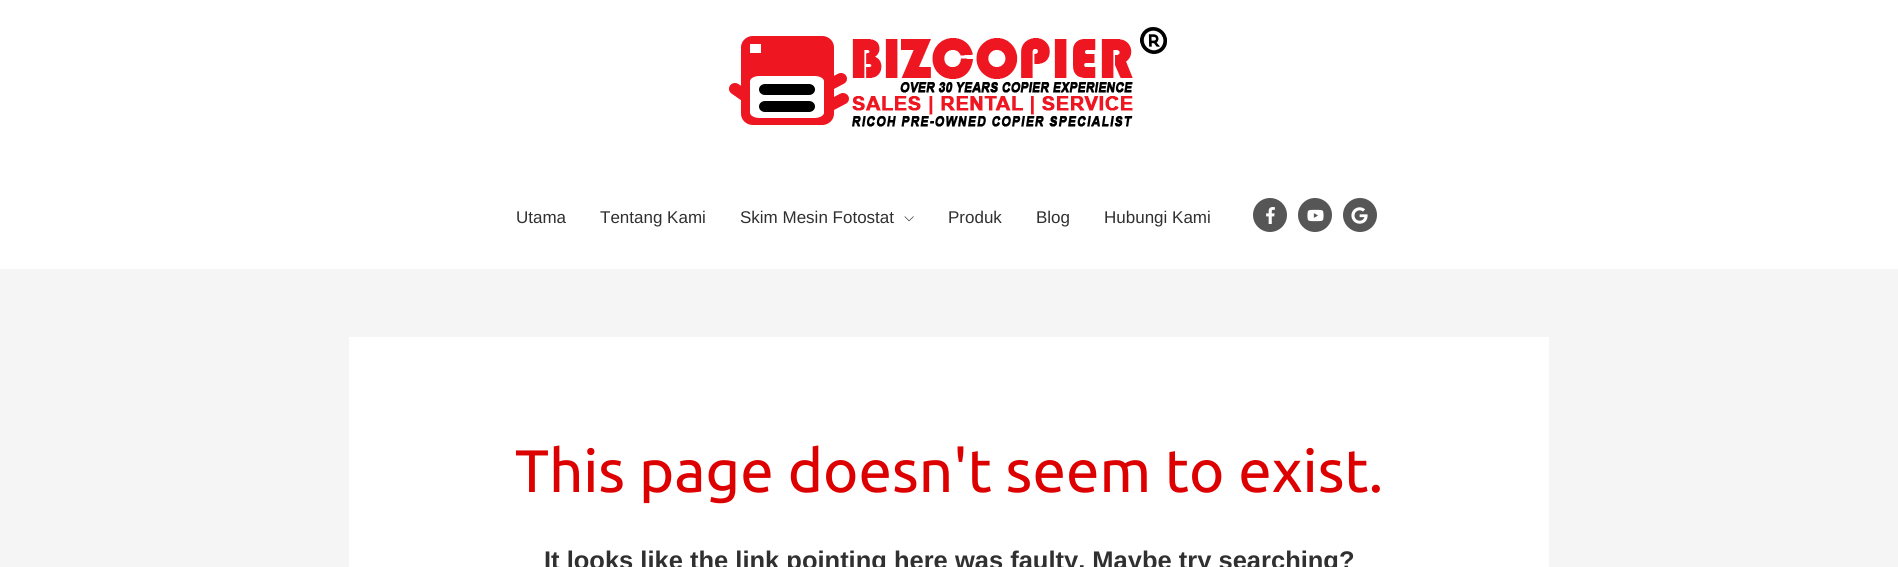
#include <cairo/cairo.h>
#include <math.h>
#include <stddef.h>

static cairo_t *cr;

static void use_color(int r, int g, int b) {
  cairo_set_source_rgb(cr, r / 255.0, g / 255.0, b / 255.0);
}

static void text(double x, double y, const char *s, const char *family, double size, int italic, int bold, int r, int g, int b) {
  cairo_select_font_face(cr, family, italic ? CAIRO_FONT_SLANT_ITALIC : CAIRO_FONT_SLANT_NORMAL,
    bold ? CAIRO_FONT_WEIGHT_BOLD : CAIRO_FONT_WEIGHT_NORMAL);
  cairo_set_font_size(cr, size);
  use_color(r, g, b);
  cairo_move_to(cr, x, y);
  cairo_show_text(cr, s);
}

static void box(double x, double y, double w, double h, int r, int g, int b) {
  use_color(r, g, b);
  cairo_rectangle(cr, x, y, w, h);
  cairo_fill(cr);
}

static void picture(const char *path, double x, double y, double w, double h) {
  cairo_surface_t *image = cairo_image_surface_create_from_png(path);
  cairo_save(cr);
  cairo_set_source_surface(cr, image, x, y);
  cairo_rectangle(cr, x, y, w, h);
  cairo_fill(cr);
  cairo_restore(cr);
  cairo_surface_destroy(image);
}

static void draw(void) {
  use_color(245, 245, 245);
  cairo_paint(cr);
  box(0, 0, 1898, 269, 255, 255, 255);
  picture("img_01.png", 729, 27, 438, 100);
  picture("img_02.png", 904, 216, 10, 6);
  use_color(86, 86, 86);
  cairo_arc(cr, 1270, 215, 17, 0, 2 * M_PI);
  cairo_fill(cr);
  picture("img_03.png", 1266, 207, 9, 17);
  cairo_arc(cr, 1315, 215, 17, 0, 2 * M_PI);
  cairo_fill(cr);
  picture("img_04.png", 1307, 209, 17, 13);
  cairo_arc(cr, 1360, 215, 17, 0, 2 * M_PI);
  cairo_fill(cr);
  picture("img_05.png", 1351, 207, 17, 17);
  box(349, 337, 1200, 230, 255, 255, 255);
  text(516, 223, "Utama", "Liberation Sans", 17, 0, 0, 48, 48, 48);
  text(600, 223, "Tentang Kami", "Liberation Sans", 17, 0, 0, 48, 48, 48);
  text(740, 223, "Skim Mesin Fotostat", "Liberation Sans", 17, 0, 0, 48, 48, 48);
  text(948, 223, "Produk", "Liberation Sans", 17, 0, 0, 48, 48, 48);
  text(1036, 223, "Blog", "Liberation Sans", 17, 0, 0, 48, 48, 48);
  text(1104, 223, "Hubungi Kami", "Liberation Sans", 17, 0, 0, 48, 48, 48);
  text(515, 492, "This page doesn't seem to exist.", "Ubuntu", 60, 0, 0, 221, 0, 0);
  text(544, 569, "It looks like the link pointing here was faulty. Maybe try searching?", "Liberation Sans", 25.5, 0, 1, 48, 48, 48);
}

int main(void) {
  cairo_surface_t *surface = cairo_image_surface_create(CAIRO_FORMAT_RGB24, 1898, 567);
  cr = cairo_create(surface);
  cairo_font_options_t *options = cairo_font_options_create();
  cairo_font_options_set_hint_metrics(options, CAIRO_HINT_METRICS_OFF);
  cairo_font_options_set_hint_style(options, CAIRO_HINT_STYLE_NONE);
  cairo_set_font_options(cr, options);
  cairo_set_miter_limit(cr, 4);
  draw();
  cairo_surface_write_to_png(surface, "out.png");
  cairo_font_options_destroy(options);
  cairo_destroy(cr);
  cairo_surface_destroy(surface);
  return 0;
}
